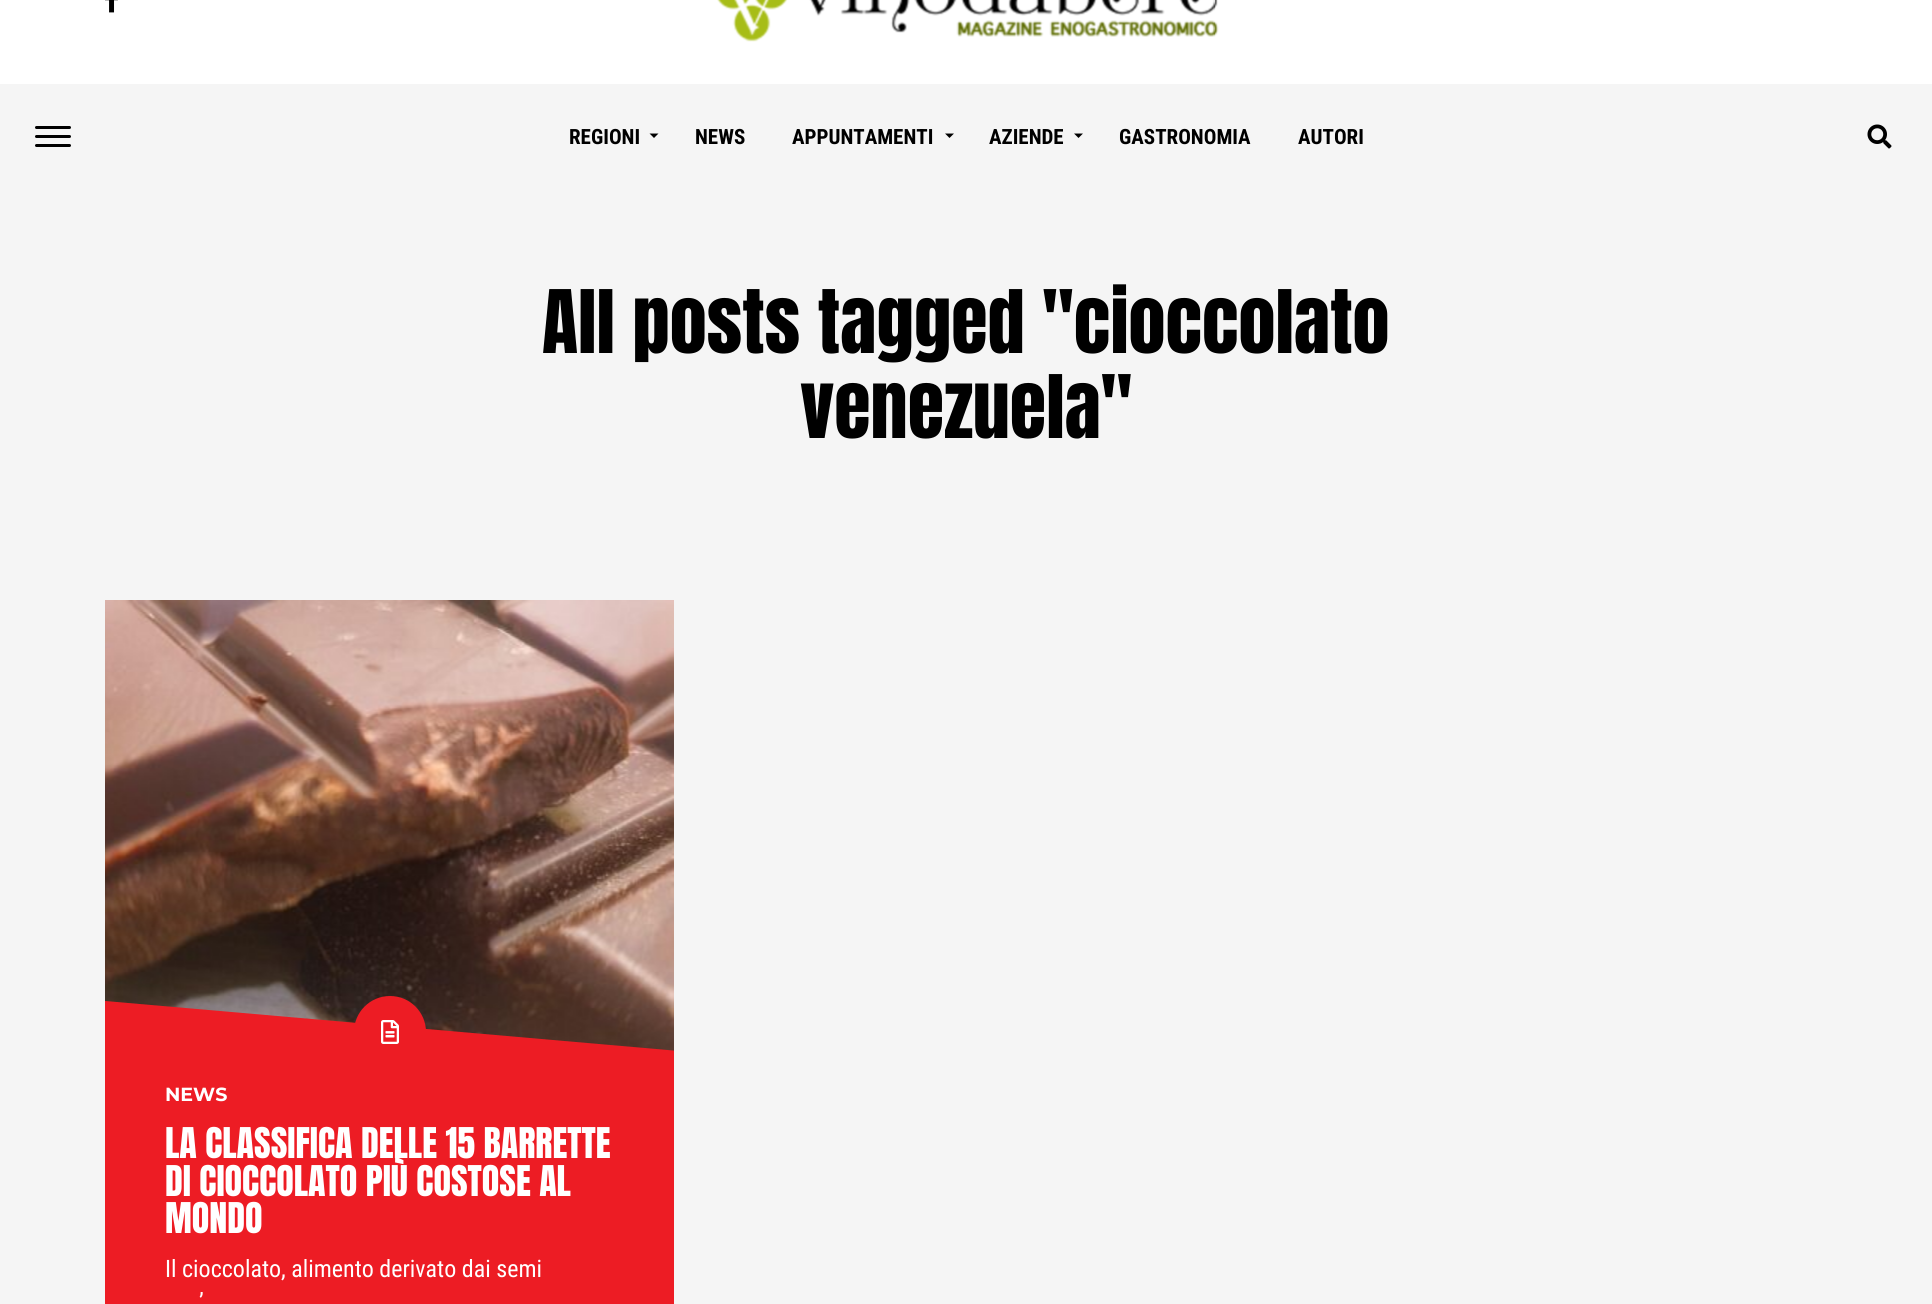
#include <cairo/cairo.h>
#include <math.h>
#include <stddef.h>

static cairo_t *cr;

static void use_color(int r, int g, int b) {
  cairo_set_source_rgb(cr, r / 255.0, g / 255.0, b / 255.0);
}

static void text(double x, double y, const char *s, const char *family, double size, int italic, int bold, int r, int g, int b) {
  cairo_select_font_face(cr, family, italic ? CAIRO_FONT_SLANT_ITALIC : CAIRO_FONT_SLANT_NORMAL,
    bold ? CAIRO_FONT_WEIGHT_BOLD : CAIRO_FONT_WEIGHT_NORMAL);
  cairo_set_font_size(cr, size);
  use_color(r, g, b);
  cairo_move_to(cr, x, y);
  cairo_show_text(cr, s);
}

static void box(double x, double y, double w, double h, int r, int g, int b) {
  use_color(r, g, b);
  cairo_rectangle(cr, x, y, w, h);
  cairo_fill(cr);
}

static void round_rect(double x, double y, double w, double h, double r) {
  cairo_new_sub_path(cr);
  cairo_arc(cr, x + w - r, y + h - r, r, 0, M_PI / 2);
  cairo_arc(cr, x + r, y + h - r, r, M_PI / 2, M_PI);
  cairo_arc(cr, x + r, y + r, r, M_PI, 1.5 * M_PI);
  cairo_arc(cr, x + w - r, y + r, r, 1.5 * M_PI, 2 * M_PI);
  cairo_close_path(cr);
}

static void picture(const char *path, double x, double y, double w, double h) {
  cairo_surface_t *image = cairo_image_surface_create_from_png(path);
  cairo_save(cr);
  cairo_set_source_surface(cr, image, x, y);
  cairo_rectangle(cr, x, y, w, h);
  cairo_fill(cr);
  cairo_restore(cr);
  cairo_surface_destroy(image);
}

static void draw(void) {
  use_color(255, 255, 255);
  cairo_paint(cr);
  picture("img_01.png", 105, 0, 13, 13);
  picture("img_02.png", 717, 0, 502, 42);
  box(0, 84, 1932, 1220, 245, 245, 245);
  use_color(0, 0, 0);
  round_rect(35, 126, 36, 3, 1.5);
  cairo_fill(cr);
  round_rect(35, 135, 36, 3, 1.5);
  cairo_fill(cr);
  round_rect(35, 144, 36, 3, 1.5);
  cairo_fill(cr);
  cairo_new_path(cr);
  cairo_move_to(cr, 649.5, 133.5);
  cairo_line_to(cr, 658.5, 133.5);
  cairo_line_to(cr, 654, 138);
  cairo_close_path(cr);
  cairo_fill(cr);
  cairo_new_path(cr);
  cairo_move_to(cr, 945, 133.5);
  cairo_line_to(cr, 954, 133.5);
  cairo_line_to(cr, 949.5, 138);
  cairo_close_path(cr);
  cairo_fill(cr);
  cairo_new_path(cr);
  cairo_move_to(cr, 1074, 133.5);
  cairo_line_to(cr, 1083, 133.5);
  cairo_line_to(cr, 1078.5, 138);
  cairo_close_path(cr);
  cairo_fill(cr);
  picture("img_03.png", 1867, 124, 25, 25);
  box(105, 1071, 569, 233, 237, 28, 36);
  picture("img_04.png", 105, 600, 569, 451);
  cairo_save(cr);
  cairo_rectangle(cr, 105, 600, 569, 471);
  cairo_clip(cr);
  cairo_new_path(cr);
  cairo_move_to(cr, 105, 1001);
  cairo_line_to(cr, 679, 1051);
  cairo_line_to(cr, 679, 1276);
  cairo_line_to(cr, 105, 1226);
  cairo_close_path(cr);
  cairo_fill(cr);
  cairo_restore(cr);
  cairo_arc(cr, 390, 1032, 36, 0, 2 * M_PI);
  cairo_fill(cr);
  picture("img_05.png", 381, 1020, 18, 24);
  text(569, 144, "REGIONI", "Roboto Condensed", 21, 0, 1, 0, 0, 0);
  text(695, 144, "NEWS", "Roboto Condensed", 21, 0, 1, 0, 0, 0);
  text(792, 144, "APPUNTAMENTI", "Roboto Condensed", 21, 0, 1, 0, 0, 0);
  text(989, 144, "AZIENDE", "Roboto Condensed", 21, 0, 1, 0, 0, 0);
  text(1119, 144, "GASTRONOMIA", "Roboto Condensed", 21, 0, 1, 0, 0, 0);
  text(1298, 144, "AUTORI", "Roboto Condensed", 21, 0, 1, 0, 0, 0);
  text(542, 353, "All posts tagged \"cioccolato", "Anton", 74.4, 0, 0, 0, 0, 0);
  text(800, 438, "venezuela\"", "Anton", 74.4, 0, 0, 0, 0, 0);
  text(165, 1101, "NEWS", "Montserrat", 19, 0, 1, 255, 255, 255);
  text(165, 1158, "LA CLASSIFICA DELLE 15 BARRETTE", "Anton", 36, 0, 0, 255, 255, 255);
  text(165, 1196, "DI CIOCCOLATO PIÙ COSTOSE AL", "Anton", 36, 0, 0, 255, 255, 255);
  text(165, 1233, "MONDO", "Anton", 36, 0, 0, 255, 255, 255);
  text(165, 1277, "Il cioccolato, alimento derivato dai semi", "Roboto Condensed", 24, 0, 0, 255, 255, 255);
  text(199, 1310, "’", "Roboto Condensed", 24, 0, 0, 255, 255, 255);
}

int main(void) {
  cairo_surface_t *surface = cairo_image_surface_create(CAIRO_FORMAT_RGB24, 1932, 1304);
  cr = cairo_create(surface);
  cairo_font_options_t *options = cairo_font_options_create();
  cairo_font_options_set_hint_metrics(options, CAIRO_HINT_METRICS_OFF);
  cairo_font_options_set_hint_style(options, CAIRO_HINT_STYLE_NONE);
  cairo_set_font_options(cr, options);
  cairo_set_miter_limit(cr, 4);
  draw();
  cairo_surface_write_to_png(surface, "out.png");
  cairo_font_options_destroy(options);
  cairo_destroy(cr);
  cairo_surface_destroy(surface);
  return 0;
}
